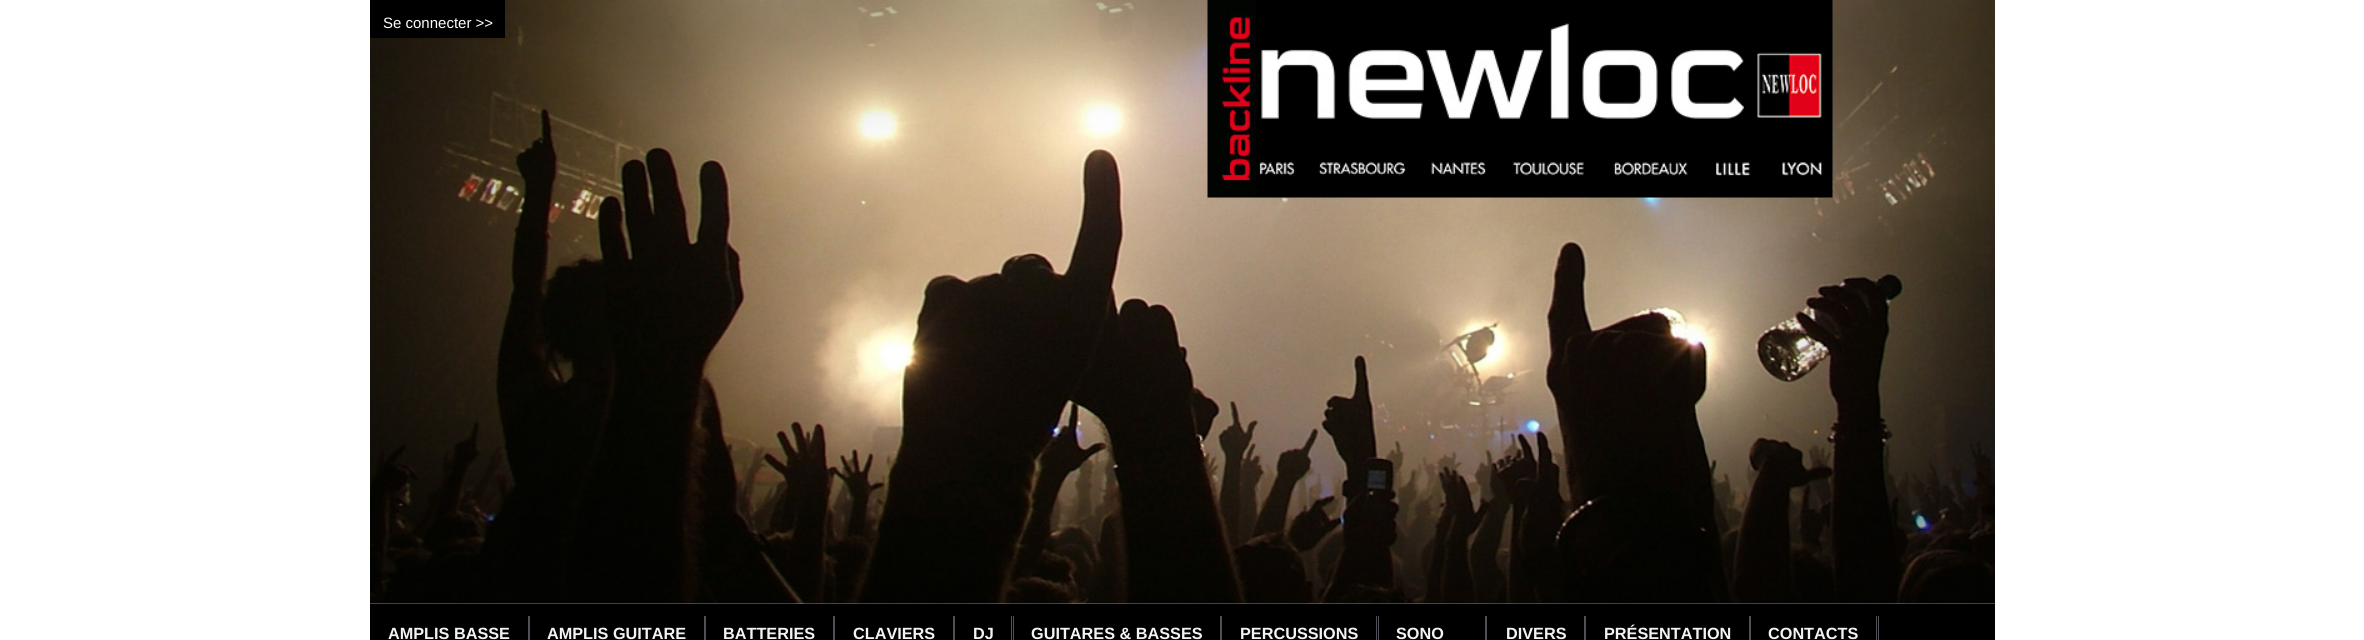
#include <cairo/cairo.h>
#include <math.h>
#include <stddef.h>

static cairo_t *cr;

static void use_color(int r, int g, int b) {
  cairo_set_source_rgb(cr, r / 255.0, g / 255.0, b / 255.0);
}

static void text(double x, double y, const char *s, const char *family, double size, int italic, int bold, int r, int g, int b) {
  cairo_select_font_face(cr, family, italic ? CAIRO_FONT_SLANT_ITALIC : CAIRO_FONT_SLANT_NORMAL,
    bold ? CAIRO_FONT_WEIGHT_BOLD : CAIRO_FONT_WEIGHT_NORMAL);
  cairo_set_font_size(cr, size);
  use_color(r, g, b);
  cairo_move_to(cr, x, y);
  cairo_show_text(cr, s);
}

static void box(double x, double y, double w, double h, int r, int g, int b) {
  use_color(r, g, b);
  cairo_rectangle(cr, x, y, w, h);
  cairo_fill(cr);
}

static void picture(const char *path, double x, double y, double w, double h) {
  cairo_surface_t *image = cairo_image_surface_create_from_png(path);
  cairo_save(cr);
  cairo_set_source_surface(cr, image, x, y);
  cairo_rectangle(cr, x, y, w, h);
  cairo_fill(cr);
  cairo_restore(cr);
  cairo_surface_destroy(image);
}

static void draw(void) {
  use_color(255, 255, 255);
  cairo_paint(cr);
  picture("img_01.png", 370, 0, 1625, 604);
  box(370, 0, 135, 38, 0, 0, 0);
  picture("img_02.png", 1207, 0, 626, 198);
  box(370, 604, 1625, 36, 0, 0, 0);
  box(528, 616, 2, 24, 79, 80, 88);
  box(704, 616, 2, 24, 79, 80, 88);
  box(833, 616, 2, 24, 79, 80, 88);
  box(953, 616, 2, 24, 79, 80, 88);
  box(1011, 616, 1, 24, 79, 80, 88);
  box(1220, 616, 2, 24, 79, 80, 88);
  box(1013, 616, 1, 24, 79, 80, 88);
  box(1376, 616, 1, 24, 79, 80, 88);
  box(1485, 616, 2, 24, 79, 80, 88);
  box(1378, 616, 1, 24, 79, 80, 88);
  box(1584, 616, 2, 24, 79, 80, 88);
  box(1749, 616, 2, 24, 79, 80, 88);
  box(1876, 616, 1, 24, 79, 80, 88);
  box(1878, 616, 1, 24, 79, 80, 88);
  box(1935, 639, 1, 1, 5, 5, 5);
  text(383, 28, "Se connecter >>", "Liberation Sans", 15, 0, 0, 255, 255, 255);
  text(388, 639, "AMPLIS BASSE", "Liberation Sans", 16.25, 0, 1, 243, 243, 243);
  text(547, 639, "AMPLIS GUITARE", "Liberation Sans", 16.25, 0, 1, 243, 243, 243);
  text(723, 639, "BATTERIES", "Liberation Sans", 16.25, 0, 1, 243, 243, 243);
  text(853, 639, "CLAVIERS", "Liberation Sans", 16.25, 0, 1, 243, 243, 243);
  text(973, 639, "DJ", "Liberation Sans", 16.25, 0, 1, 243, 243, 243);
  text(1031, 639, "GUITARES & BASSES", "Liberation Sans", 16.25, 0, 1, 243, 243, 243);
  text(1240, 639, "PERCUSSIONS", "Liberation Sans", 16.25, 0, 1, 243, 243, 243);
  text(1396, 639, "SONO", "Liberation Sans", 16.25, 0, 1, 243, 243, 243);
  text(1506, 639, "DIVERS", "Liberation Sans", 16.25, 0, 1, 243, 243, 243);
  text(1604, 639, "PRÉSENTATION", "Liberation Sans", 16.25, 0, 1, 243, 243, 243);
  text(1768, 639, "CONTACTS", "Liberation Sans", 16.25, 0, 1, 243, 243, 243);
}

int main(void) {
  cairo_surface_t *surface = cairo_image_surface_create(CAIRO_FORMAT_RGB24, 2364, 640);
  cr = cairo_create(surface);
  cairo_font_options_t *options = cairo_font_options_create();
  cairo_font_options_set_hint_metrics(options, CAIRO_HINT_METRICS_OFF);
  cairo_font_options_set_hint_style(options, CAIRO_HINT_STYLE_NONE);
  cairo_set_font_options(cr, options);
  cairo_set_miter_limit(cr, 4);
  draw();
  cairo_surface_write_to_png(surface, "out.png");
  cairo_font_options_destroy(options);
  cairo_destroy(cr);
  cairo_surface_destroy(surface);
  return 0;
}
